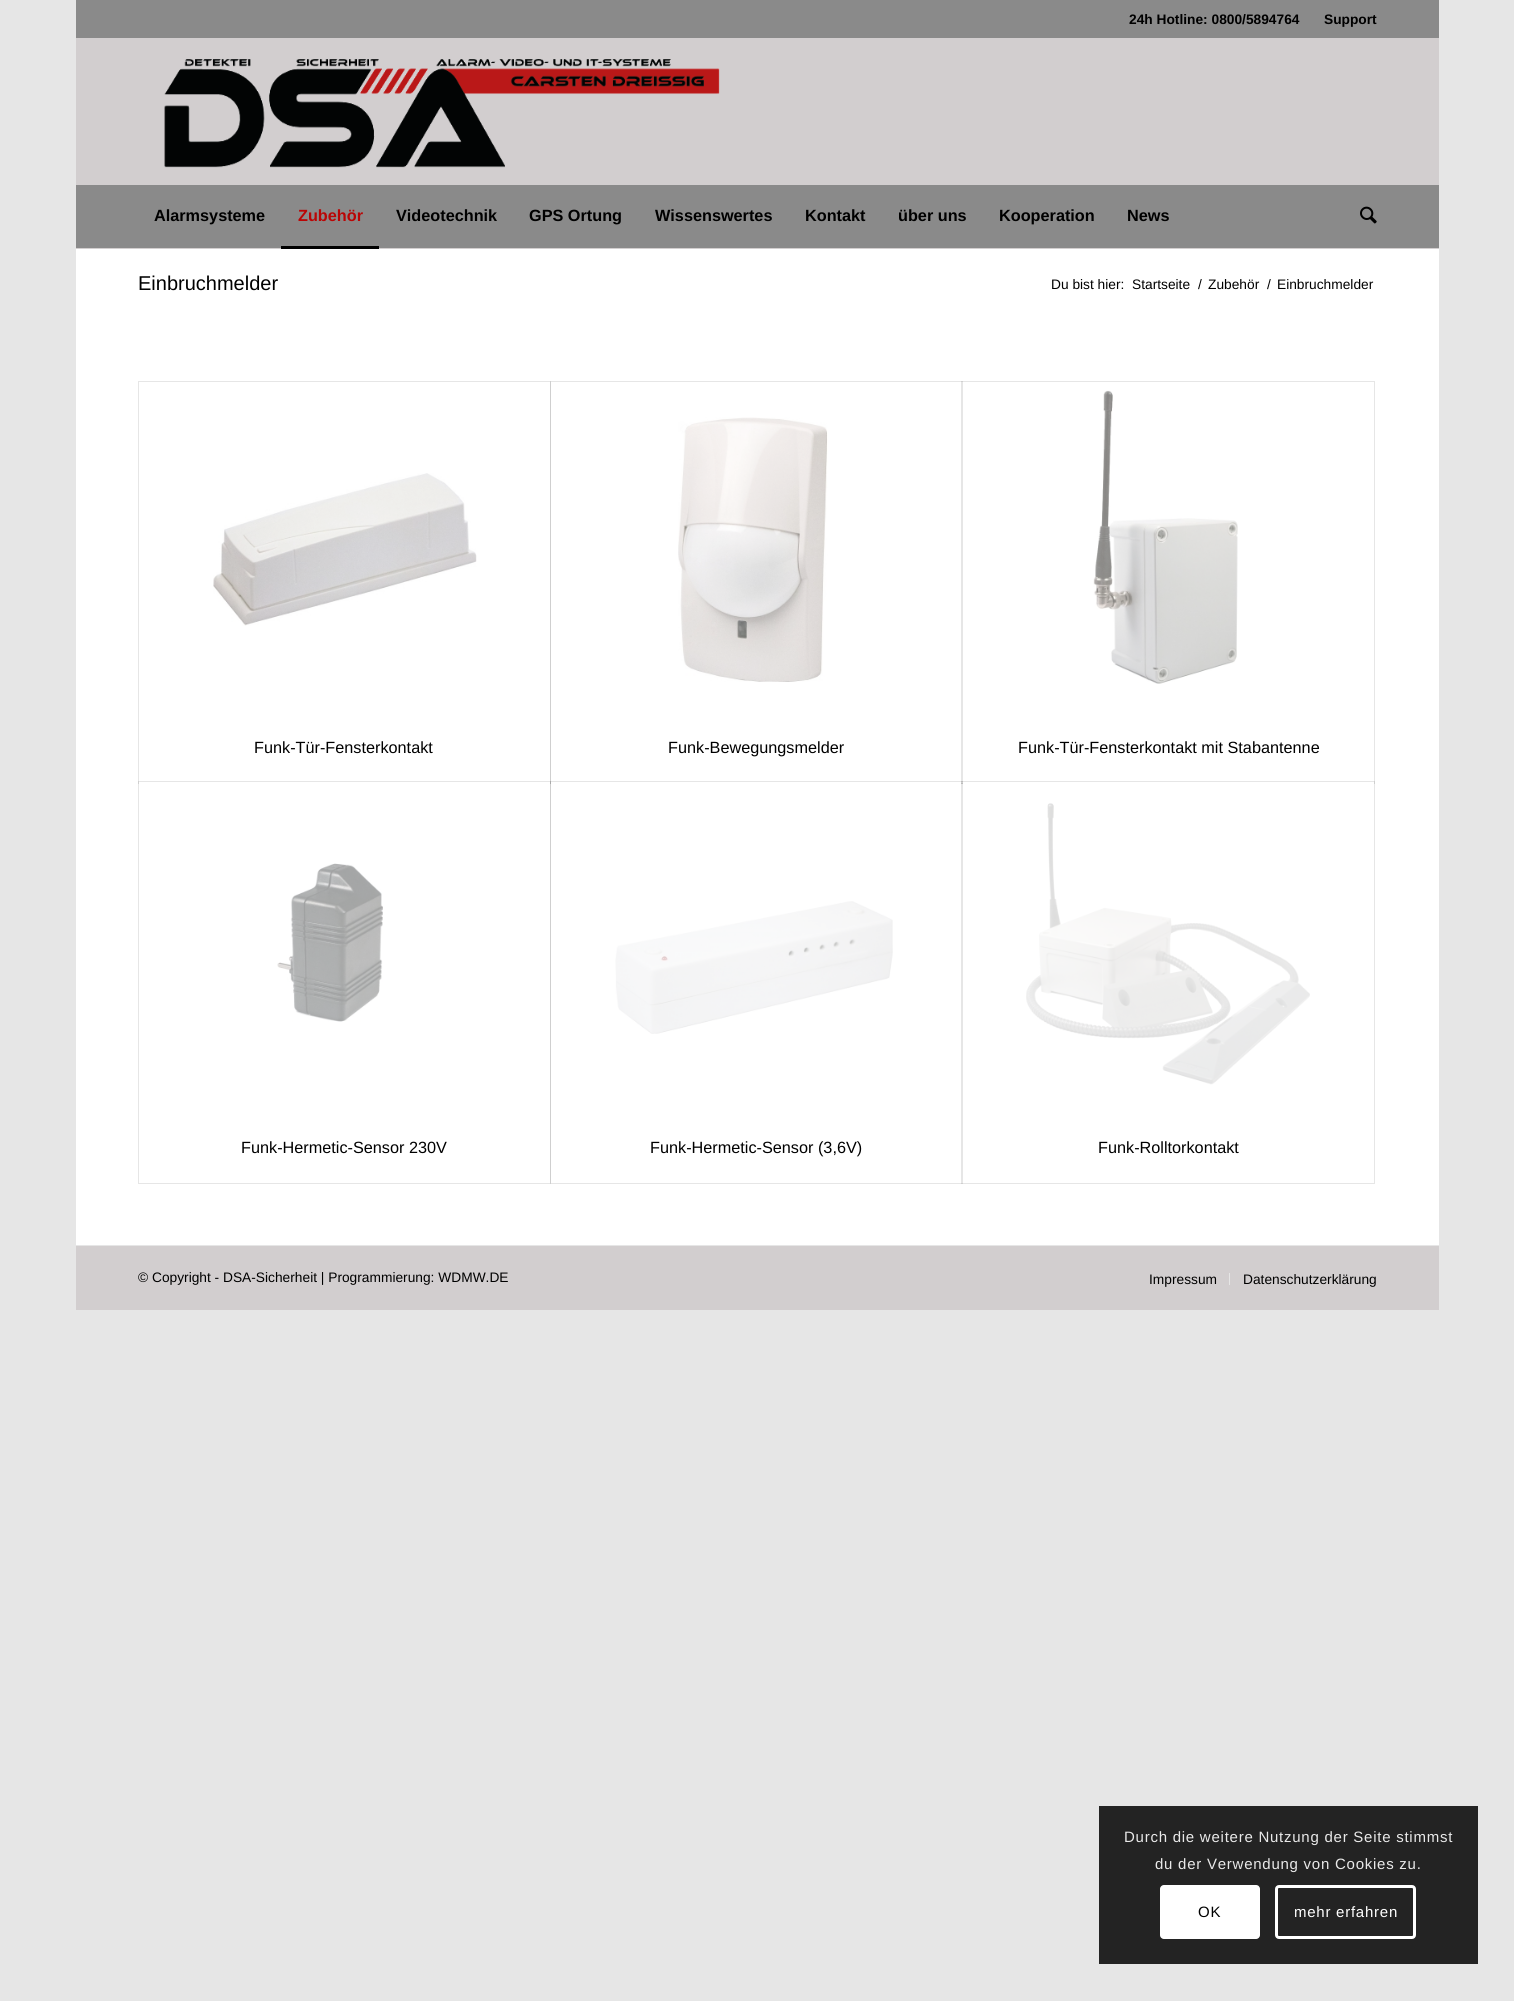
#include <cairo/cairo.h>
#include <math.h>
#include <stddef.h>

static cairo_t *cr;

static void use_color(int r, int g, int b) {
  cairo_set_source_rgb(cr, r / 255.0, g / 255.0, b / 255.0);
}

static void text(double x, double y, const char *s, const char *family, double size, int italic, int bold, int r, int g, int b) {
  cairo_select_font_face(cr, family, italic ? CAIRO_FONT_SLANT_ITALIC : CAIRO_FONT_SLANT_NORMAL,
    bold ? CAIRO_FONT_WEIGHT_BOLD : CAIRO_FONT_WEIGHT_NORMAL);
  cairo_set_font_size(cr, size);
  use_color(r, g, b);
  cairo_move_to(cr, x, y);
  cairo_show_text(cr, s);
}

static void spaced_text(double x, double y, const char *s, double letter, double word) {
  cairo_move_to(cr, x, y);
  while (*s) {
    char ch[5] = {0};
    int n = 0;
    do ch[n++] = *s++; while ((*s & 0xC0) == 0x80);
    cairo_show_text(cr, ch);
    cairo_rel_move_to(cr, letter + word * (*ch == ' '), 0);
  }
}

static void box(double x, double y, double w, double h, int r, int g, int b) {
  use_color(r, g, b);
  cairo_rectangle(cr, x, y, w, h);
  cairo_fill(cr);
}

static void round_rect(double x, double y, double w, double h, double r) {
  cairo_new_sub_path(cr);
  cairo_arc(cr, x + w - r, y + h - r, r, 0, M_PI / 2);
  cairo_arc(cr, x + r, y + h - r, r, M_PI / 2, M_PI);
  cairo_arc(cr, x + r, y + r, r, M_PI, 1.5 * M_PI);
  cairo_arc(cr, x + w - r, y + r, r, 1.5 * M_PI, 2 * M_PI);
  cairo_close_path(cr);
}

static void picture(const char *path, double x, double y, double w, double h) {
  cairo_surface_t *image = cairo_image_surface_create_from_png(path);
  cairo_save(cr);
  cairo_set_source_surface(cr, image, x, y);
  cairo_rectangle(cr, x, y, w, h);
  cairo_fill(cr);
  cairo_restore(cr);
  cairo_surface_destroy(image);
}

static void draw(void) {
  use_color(230, 230, 230);
  cairo_paint(cr);
  box(76, 0, 1363, 38, 138, 138, 138);
  box(76, 38, 1363, 147, 210, 206, 207);
  picture("img_01.png", 164, 59, 556, 109);
  box(76, 185, 1363, 63, 138, 138, 138);
  box(76, 248, 1363, 1, 211, 207, 208);
  box(281, 246, 98, 3, 0, 0, 0);
  picture("img_02.png", 1360, 206, 17, 18);
  box(76, 1246, 1363, 64, 210, 206, 207);
  box(76, 249, 1363, 996, 255, 255, 255);
  cairo_rectangle(cr, 138.5, 381.5, 412, 402);
  use_color(230, 230, 230);
  cairo_set_line_width(cr, 1);
  cairo_stroke(cr);
  picture("img_03.png", 213, 473, 264, 153);
  cairo_rectangle(cr, 550.5, 381.5, 412, 402);
  cairo_set_source_rgba(cr, 0, 0, 0, 0.1);
  cairo_stroke(cr);
  picture("img_04.png", 678, 417, 150, 265);
  cairo_rectangle(cr, 961.5, 381.5, 413, 402);
  cairo_stroke(cr);
  picture("img_05.png", 1093, 390, 145, 294);
  cairo_rectangle(cr, 138.5, 781.5, 412, 402);
  cairo_stroke(cr);
  box(139, 783, 411, 1, 255, 255, 255);
  picture("img_06.png", 277, 863, 106, 159);
  cairo_rectangle(cr, 550.5, 781.5, 412, 402);
  cairo_set_source_rgba(cr, 0, 0, 0, 0.1);
  cairo_stroke(cr);
  box(551, 783, 410, 1, 255, 255, 255);
  picture("img_07.png", 615, 901, 278, 133);
  cairo_rectangle(cr, 961.5, 781.5, 413, 402);
  cairo_set_source_rgba(cr, 0, 0, 0, 0.1);
  cairo_stroke(cr);
  box(963, 783, 411, 1, 255, 255, 255);
  picture("img_08.png", 1026, 803, 284, 282);
  box(1229, 1273, 1, 12, 230, 230, 230);
  box(1099, 1806, 379, 158, 35, 35, 35);
  use_color(255, 255, 255);
  round_rect(1160, 1885, 100, 54, 4);
  cairo_fill(cr);
  round_rect(1276.5, 1886.5, 138, 51, 2.5);
  cairo_set_line_width(cr, 3);
  cairo_stroke(cr);
  text(1129, 24, "24h Hotline: 0800/5894764", "Liberation Sans", 13.75, 0, 1, 0, 0, 0);
  text(1324, 24, "Support", "Liberation Sans", 13.75, 0, 1, 0, 0, 0);
  text(154, 221, "Alarmsysteme", "Liberation Sans", 16.25, 0, 1, 0, 0, 0);
  text(298, 221, "Zubehör", "Liberation Sans", 16.25, 0, 1, 186, 5, 5);
  text(396, 221, "Videotechnik", "Liberation Sans", 16.25, 0, 1, 0, 0, 0);
  text(529, 221, "GPS Ortung", "Liberation Sans", 16.25, 0, 1, 0, 0, 0);
  text(655, 221, "Wissenswertes", "Liberation Sans", 16.25, 0, 1, 0, 0, 0);
  text(805, 221, "Kontakt", "Liberation Sans", 16.25, 0, 1, 0, 0, 0);
  text(898, 221, "über uns", "Liberation Sans", 16.25, 0, 1, 0, 0, 0);
  text(999, 221, "Kooperation", "Liberation Sans", 16.25, 0, 1, 0, 0, 0);
  text(1127, 221, "News", "Liberation Sans", 16.25, 0, 1, 0, 0, 0);
  text(138, 290, "Einbruchmelder", "Liberation Sans", 20, 0, 0, 0, 0, 0);
  text(1051, 289, "Du bist hier:", "Liberation Sans", 13.75, 0, 0, 0, 0, 0);
  text(1132, 289, "Startseite", "Liberation Sans", 13.75, 0, 0, 0, 0, 0);
  text(1198, 289, "/", "Liberation Sans", 13.75, 0, 0, 0, 0, 0);
  text(1208, 289, "Zubehör", "Liberation Sans", 13.75, 0, 0, 0, 0, 0);
  text(1267, 289, "/", "Liberation Sans", 13.75, 0, 0, 0, 0, 0);
  text(1277, 289, "Einbruchmelder", "Liberation Sans", 13.75, 0, 0, 0, 0, 0);
  text(254, 753, "Funk-Tür-Fensterkontakt", "Liberation Sans", 16.25, 0, 0, 0, 0, 0);
  text(668, 753, "Funk-Bewegungsmelder", "Liberation Sans", 16.25, 0, 0, 0, 0, 0);
  text(1018, 753, "Funk-Tür-Fensterkontakt mit Stabantenne", "Liberation Sans", 16.25, 0, 0, 0, 0, 0);
  text(241, 1153, "Funk-Hermetic-Sensor 230V", "Liberation Sans", 16.25, 0, 0, 0, 0, 0);
  text(650, 1153, "Funk-Hermetic-Sensor (3,6V)", "Liberation Sans", 16.25, 0, 0, 0, 0, 0);
  text(1098, 1153, "Funk-Rolltorkontakt", "Liberation Sans", 16.25, 0, 0, 0, 0, 0);
  text(138, 1282, "© Copyright - DSA-Sicherheit | Programmierung: WDMW.DE", "Liberation Sans", 13.75, 0, 0, 0, 0, 0);
  text(1149, 1284, "Impressum", "Liberation Sans", 13.75, 0, 0, 0, 0, 0);
  text(1243, 1284, "Datenschutzerklärung", "Liberation Sans", 13.75, 0, 0, 0, 0, 0);
  cairo_set_font_size(cr, 15);
  use_color(233, 233, 233);
  spaced_text(1124, 1842, "Durch die weitere Nutzung der Seite stimmst", 0.75, 0);
  spaced_text(1155, 1869, "du der Verwendung von Cookies zu.", 0.75, 0);
  use_color(0, 0, 0);
  spaced_text(1198, 1917, "OK", 0.75, 0);
  use_color(255, 255, 255);
  spaced_text(1294, 1917, "mehr erfahren", 0.75, 0);
}

int main(void) {
  cairo_surface_t *surface = cairo_image_surface_create(CAIRO_FORMAT_RGB24, 1514, 2001);
  cr = cairo_create(surface);
  cairo_font_options_t *options = cairo_font_options_create();
  cairo_font_options_set_hint_metrics(options, CAIRO_HINT_METRICS_OFF);
  cairo_font_options_set_hint_style(options, CAIRO_HINT_STYLE_NONE);
  cairo_set_font_options(cr, options);
  cairo_set_miter_limit(cr, 4);
  draw();
  cairo_surface_write_to_png(surface, "out.png");
  cairo_font_options_destroy(options);
  cairo_destroy(cr);
  cairo_surface_destroy(surface);
  return 0;
}
